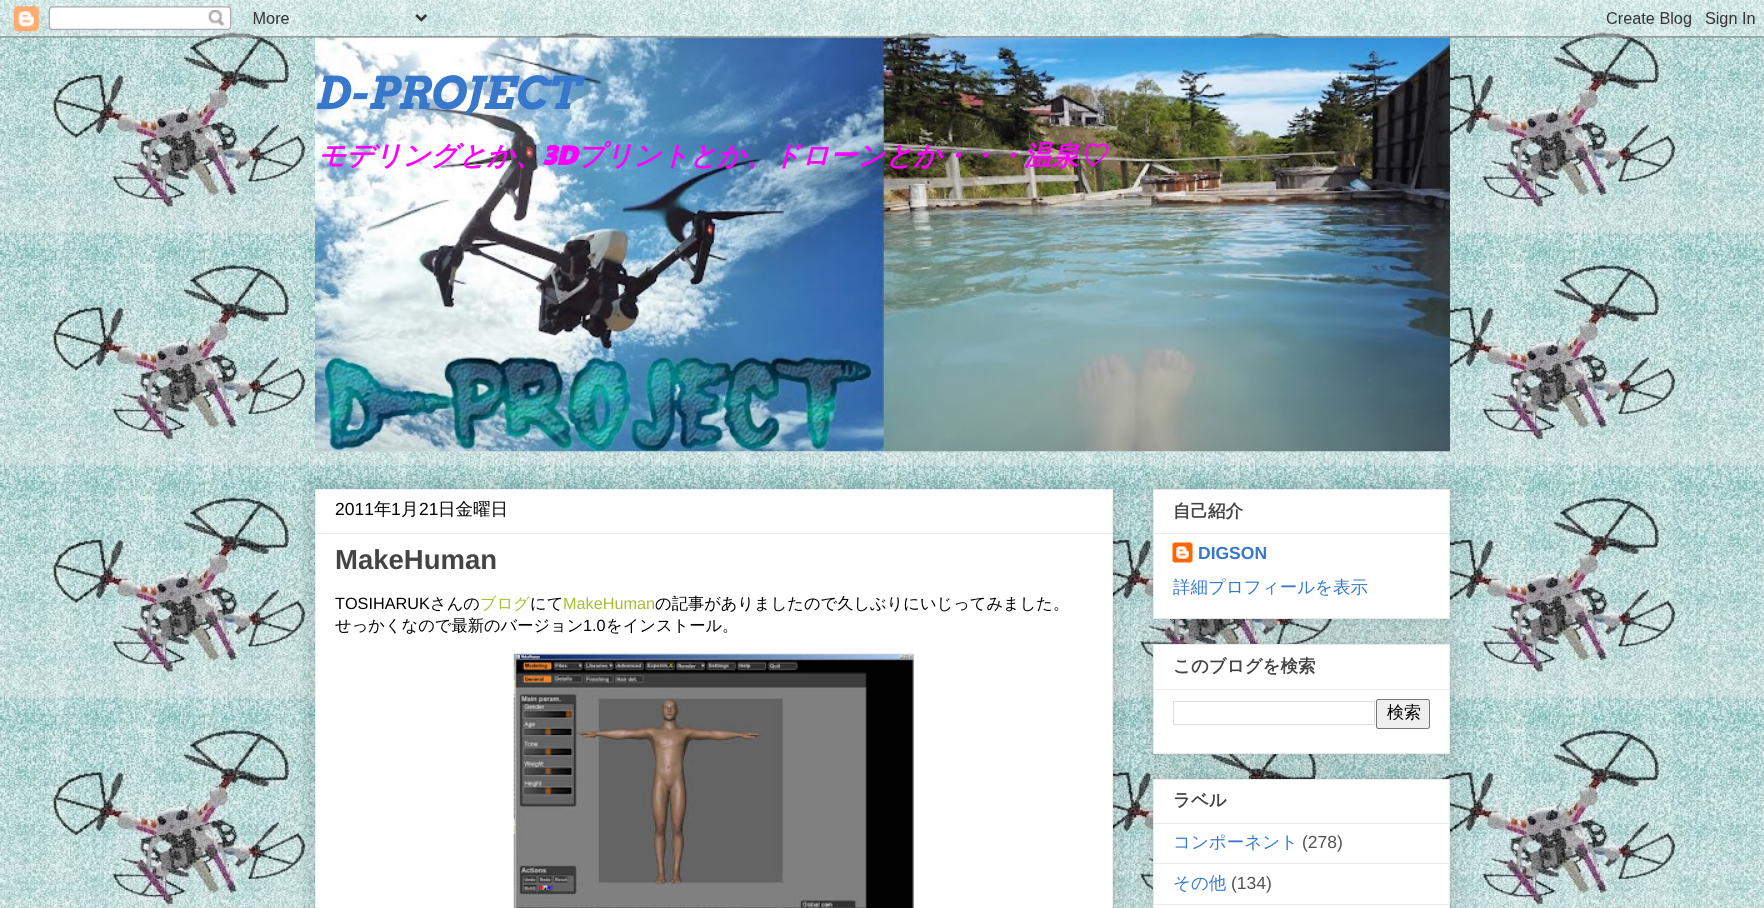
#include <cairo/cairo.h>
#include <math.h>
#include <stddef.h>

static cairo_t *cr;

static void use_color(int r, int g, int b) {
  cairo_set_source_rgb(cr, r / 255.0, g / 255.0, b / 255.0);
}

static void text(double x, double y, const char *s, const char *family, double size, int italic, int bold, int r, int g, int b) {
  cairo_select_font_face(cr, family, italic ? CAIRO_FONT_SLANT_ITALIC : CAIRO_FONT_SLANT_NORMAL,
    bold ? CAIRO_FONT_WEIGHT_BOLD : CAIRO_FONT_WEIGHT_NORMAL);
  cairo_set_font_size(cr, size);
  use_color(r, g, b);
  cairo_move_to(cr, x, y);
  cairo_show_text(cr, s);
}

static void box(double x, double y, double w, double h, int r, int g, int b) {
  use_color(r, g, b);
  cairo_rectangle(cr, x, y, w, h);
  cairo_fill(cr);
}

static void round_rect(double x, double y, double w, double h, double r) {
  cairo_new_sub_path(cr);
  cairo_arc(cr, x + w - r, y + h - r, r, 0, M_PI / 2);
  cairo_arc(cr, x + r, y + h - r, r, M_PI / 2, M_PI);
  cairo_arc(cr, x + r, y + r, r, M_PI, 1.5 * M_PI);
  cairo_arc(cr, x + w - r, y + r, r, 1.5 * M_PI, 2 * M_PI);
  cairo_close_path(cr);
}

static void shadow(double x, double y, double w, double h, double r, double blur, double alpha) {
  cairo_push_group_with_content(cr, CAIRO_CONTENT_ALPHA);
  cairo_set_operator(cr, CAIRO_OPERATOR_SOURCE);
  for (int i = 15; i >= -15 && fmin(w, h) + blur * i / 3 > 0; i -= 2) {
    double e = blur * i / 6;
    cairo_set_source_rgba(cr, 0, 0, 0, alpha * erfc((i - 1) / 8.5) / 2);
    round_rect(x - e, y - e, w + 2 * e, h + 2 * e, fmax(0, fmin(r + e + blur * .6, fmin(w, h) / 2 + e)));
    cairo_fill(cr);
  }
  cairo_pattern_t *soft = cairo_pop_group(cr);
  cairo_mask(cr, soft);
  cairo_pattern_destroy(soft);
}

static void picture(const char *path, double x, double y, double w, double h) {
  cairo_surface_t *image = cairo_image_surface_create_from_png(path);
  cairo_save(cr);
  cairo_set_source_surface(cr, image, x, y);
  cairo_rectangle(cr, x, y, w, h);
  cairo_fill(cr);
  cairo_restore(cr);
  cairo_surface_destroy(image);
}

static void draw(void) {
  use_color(255, 255, 255);
  cairo_paint(cr);
  picture("img_01.png", 0, 0, 1764, 908);
  picture("img_03.png", 315, 37, 1135, 415);
  picture("img_02.png", 0, 0, 1764, 38);
  use_color(0, 0, 0);
  shadow(315, 489, 798, 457, 0, 12.5, 0.2);
  use_color(255, 255, 255);
  cairo_rectangle(cr, 315.5, 489.5, 797, 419);
  cairo_fill_preserve(cr);
  use_color(238, 238, 238);
  cairo_set_line_width(cr, 1);
  cairo_stroke(cr);
  box(316, 533, 795, 1, 234, 234, 234);
  picture("img_04.png", 513, 653, 401, 255);
  use_color(0, 0, 0);
  shadow(1153, 489, 297, 130, 0, 12.5, 0.2);
  use_color(255, 255, 255);
  cairo_rectangle(cr, 1153.5, 489.5, 296, 129);
  cairo_fill_preserve(cr);
  use_color(234, 234, 234);
  cairo_stroke(cr);
  box(1154, 533, 295, 1, 234, 234, 234);
  picture("img_05.png", 1172, 542, 21, 21);
  use_color(0, 0, 0);
  shadow(1153, 644, 297, 110, 0, 12.5, 0.2);
  use_color(255, 255, 255);
  cairo_rectangle(cr, 1153.5, 644.5, 296, 109);
  cairo_fill_preserve(cr);
  use_color(234, 234, 234);
  cairo_stroke(cr);
  box(1154, 689, 295, 1, 234, 234, 234);
  cairo_rectangle(cr, 1173.5, 701.5, 201, 23);
  use_color(221, 221, 221);
  cairo_stroke(cr);
  use_color(239, 239, 239);
  round_rect(1376.5, 699.5, 53, 29, 2);
  cairo_fill_preserve(cr);
  use_color(118, 118, 118);
  cairo_stroke(cr);
  use_color(0, 0, 0);
  shadow(1153, 779, 297, 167, 0, 12.5, 0.2);
  use_color(255, 255, 255);
  cairo_rectangle(cr, 1153.5, 779.5, 296, 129);
  cairo_fill_preserve(cr);
  use_color(234, 234, 234);
  cairo_stroke(cr);
  box(1154, 823, 295, 1, 234, 234, 234);
  box(1154, 863, 295, 1, 234, 234, 234);
  box(1154, 904, 295, 1, 234, 234, 234);
  text(315, 109, "D-PROJECT", "Arvo", 45, 1, 1, 55, 120, 205);
  text(318, 165, "モデリングとか、", "WenQuanYi Zen Hei", 27.5, 1, 1, 255, 0, 255);
  text(542, 165, "3D", "Paytone One", 27.5, 1, 1, 255, 0, 255);
  text(577, 165, "プリントとか、ドローンとか・・・温泉♡", "WenQuanYi Zen Hei", 27.5, 1, 1, 255, 0, 255);
  text(335, 515, "2011", "Liberation Sans", 17.5, 0, 0, 0, 0, 0);
  text(374, 515, "年", "WenQuanYi Zen Hei Medium", 17.5, 0, 0, 0, 0, 0);
  text(391, 515, "1", "Liberation Sans", 17.5, 0, 0, 0, 0, 0);
  text(401, 515, "月", "WenQuanYi Zen Hei Medium", 17.5, 0, 0, 0, 0, 0);
  text(419, 515, "21", "Liberation Sans", 17.5, 0, 0, 0, 0, 0);
  text(438, 515, "日金曜日", "WenQuanYi Zen Hei Medium", 17.5, 0, 0, 0, 0, 0);
  text(335, 569, "MakeHuman", "Liberation Sans", 27.5, 0, 1, 68, 68, 68);
  text(335, 609, "TOSIHARUK", "Liberation Sans", 16.25, 0, 0, 0, 0, 0);
  text(430, 609, "さんの", "WenQuanYi Zen Hei Medium", 16.25, 0, 0, 0, 0, 0);
  text(480, 609, "ブログ", "WenQuanYi Zen Hei Medium", 16.25, 0, 0, 167, 190, 47);
  text(530, 609, "にて", "WenQuanYi Zen Hei Medium", 16.25, 0, 0, 0, 0, 0);
  text(563, 609, "MakeHuman", "Liberation Sans", 16.25, 0, 0, 167, 190, 47);
  text(655, 609, "の記事がありましたので久しぶりにいじってみました。", "WenQuanYi Zen Hei Medium", 16.25, 0, 0, 0, 0, 0);
  text(335, 631, "せっかくなので最新のバージョン", "WenQuanYi Zen Hei Medium", 16.25, 0, 0, 0, 0, 0);
  text(583, 631, "1.0", "Liberation Sans", 16.25, 0, 0, 0, 0, 0);
  text(606, 631, "をインストール。", "WenQuanYi Zen Hei Medium", 16.25, 0, 0, 0, 0, 0);
  text(1173, 517, "自己紹介", "WenQuanYi Zen Hei", 17.5, 0, 1, 68, 68, 68);
  text(1198, 559, "DIGSON", "Liberation Sans", 17.5, 0, 1, 55, 120, 205);
  text(1173, 593, "詳細プロフィールを表示", "WenQuanYi Zen Hei Medium", 17.5, 0, 0, 55, 120, 205);
  text(1173, 672, "このブログを検索", "WenQuanYi Zen Hei", 17.5, 0, 1, 68, 68, 68);
  text(1387, 718, "検索", "WenQuanYi Zen Hei Medium", 17, 0, 0, 0, 0, 0);
  text(1173, 806, "ラベル", "WenQuanYi Zen Hei", 17.5, 0, 1, 68, 68, 68);
  text(1173, 848, "コンポーネント", "WenQuanYi Zen Hei Medium", 17.5, 0, 0, 55, 120, 205);
  text(1302, 848, "(278)", "Liberation Sans", 17.5, 0, 0, 81, 81, 81);
  text(1173, 889, "その他", "WenQuanYi Zen Hei Medium", 17.5, 0, 0, 55, 120, 205);
  text(1231, 889, "(134)", "Liberation Sans", 17.5, 0, 0, 81, 81, 81);
}

int main(void) {
  cairo_surface_t *surface = cairo_image_surface_create(CAIRO_FORMAT_RGB24, 1764, 908);
  cr = cairo_create(surface);
  cairo_font_options_t *options = cairo_font_options_create();
  cairo_font_options_set_hint_metrics(options, CAIRO_HINT_METRICS_OFF);
  cairo_font_options_set_hint_style(options, CAIRO_HINT_STYLE_NONE);
  cairo_set_font_options(cr, options);
  cairo_set_miter_limit(cr, 4);
  draw();
  cairo_surface_write_to_png(surface, "out.png");
  cairo_font_options_destroy(options);
  cairo_destroy(cr);
  cairo_surface_destroy(surface);
  return 0;
}
